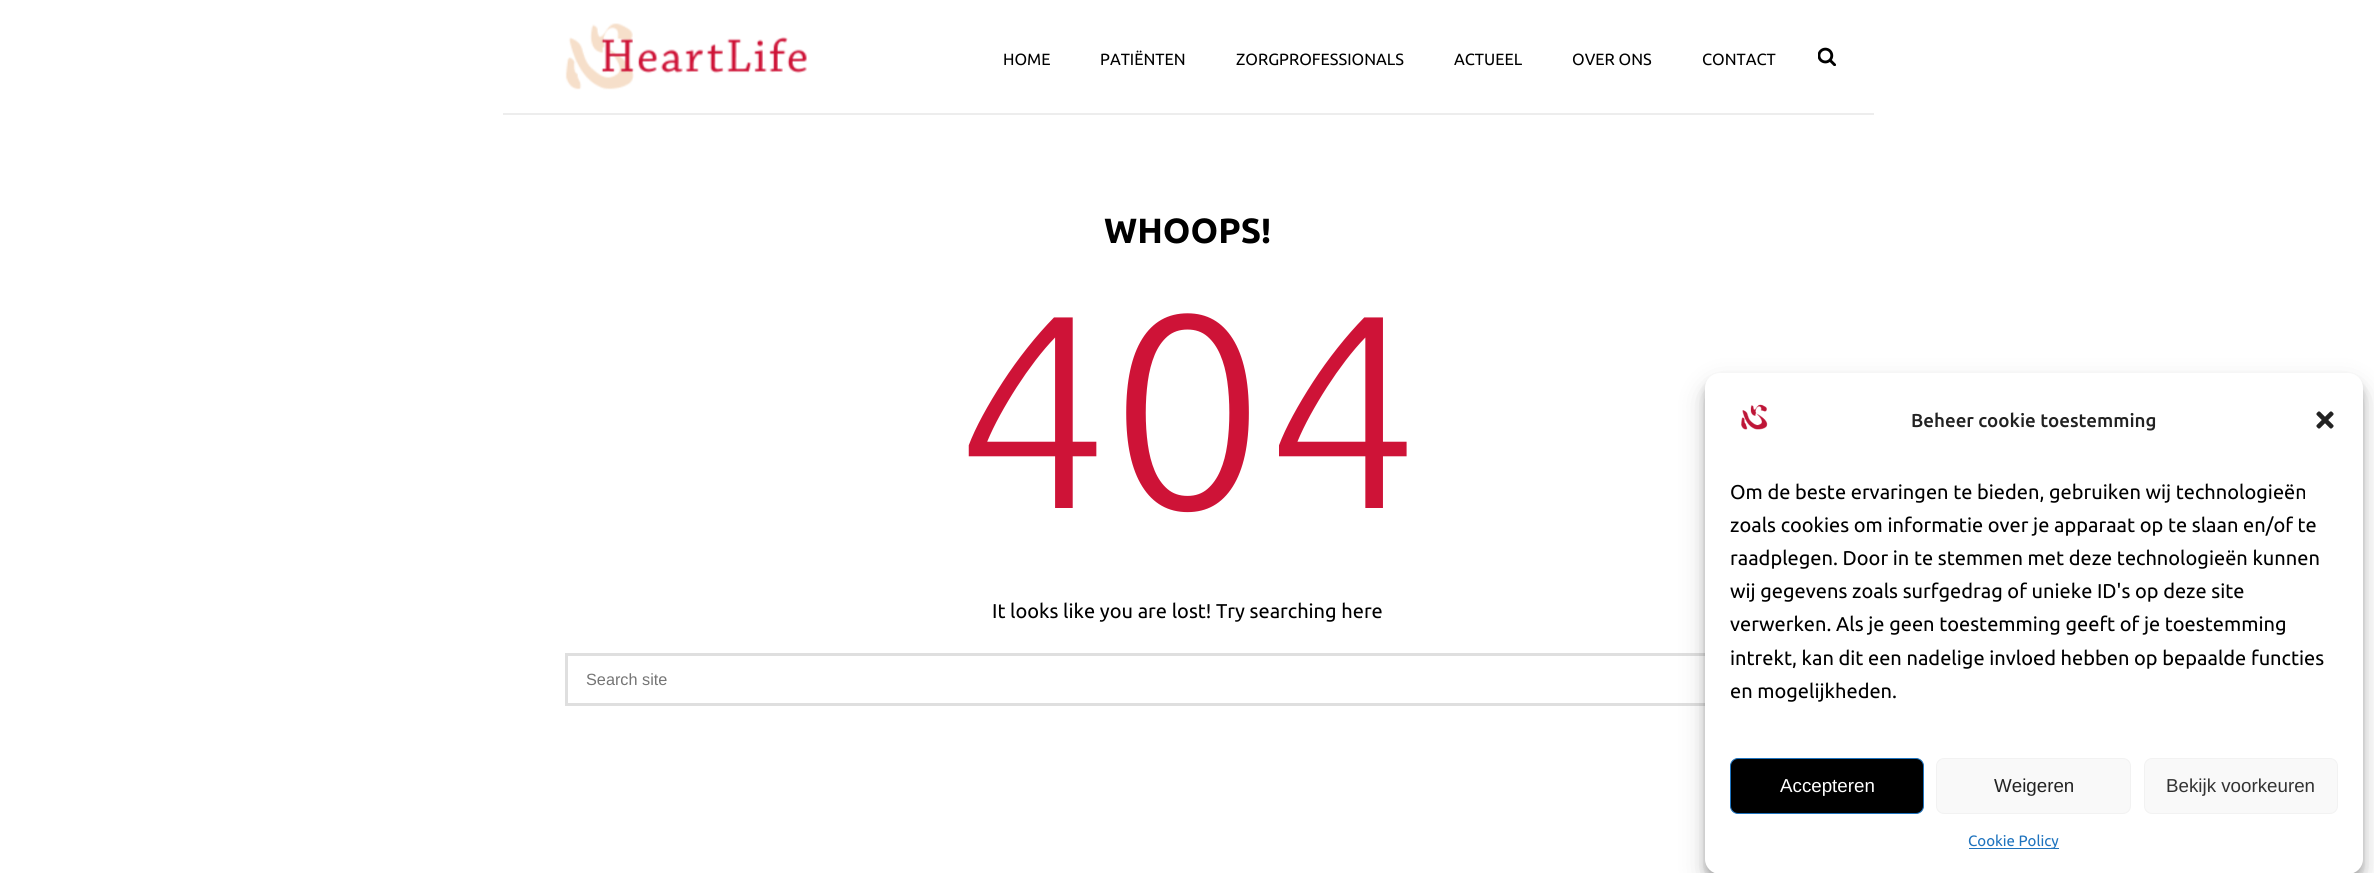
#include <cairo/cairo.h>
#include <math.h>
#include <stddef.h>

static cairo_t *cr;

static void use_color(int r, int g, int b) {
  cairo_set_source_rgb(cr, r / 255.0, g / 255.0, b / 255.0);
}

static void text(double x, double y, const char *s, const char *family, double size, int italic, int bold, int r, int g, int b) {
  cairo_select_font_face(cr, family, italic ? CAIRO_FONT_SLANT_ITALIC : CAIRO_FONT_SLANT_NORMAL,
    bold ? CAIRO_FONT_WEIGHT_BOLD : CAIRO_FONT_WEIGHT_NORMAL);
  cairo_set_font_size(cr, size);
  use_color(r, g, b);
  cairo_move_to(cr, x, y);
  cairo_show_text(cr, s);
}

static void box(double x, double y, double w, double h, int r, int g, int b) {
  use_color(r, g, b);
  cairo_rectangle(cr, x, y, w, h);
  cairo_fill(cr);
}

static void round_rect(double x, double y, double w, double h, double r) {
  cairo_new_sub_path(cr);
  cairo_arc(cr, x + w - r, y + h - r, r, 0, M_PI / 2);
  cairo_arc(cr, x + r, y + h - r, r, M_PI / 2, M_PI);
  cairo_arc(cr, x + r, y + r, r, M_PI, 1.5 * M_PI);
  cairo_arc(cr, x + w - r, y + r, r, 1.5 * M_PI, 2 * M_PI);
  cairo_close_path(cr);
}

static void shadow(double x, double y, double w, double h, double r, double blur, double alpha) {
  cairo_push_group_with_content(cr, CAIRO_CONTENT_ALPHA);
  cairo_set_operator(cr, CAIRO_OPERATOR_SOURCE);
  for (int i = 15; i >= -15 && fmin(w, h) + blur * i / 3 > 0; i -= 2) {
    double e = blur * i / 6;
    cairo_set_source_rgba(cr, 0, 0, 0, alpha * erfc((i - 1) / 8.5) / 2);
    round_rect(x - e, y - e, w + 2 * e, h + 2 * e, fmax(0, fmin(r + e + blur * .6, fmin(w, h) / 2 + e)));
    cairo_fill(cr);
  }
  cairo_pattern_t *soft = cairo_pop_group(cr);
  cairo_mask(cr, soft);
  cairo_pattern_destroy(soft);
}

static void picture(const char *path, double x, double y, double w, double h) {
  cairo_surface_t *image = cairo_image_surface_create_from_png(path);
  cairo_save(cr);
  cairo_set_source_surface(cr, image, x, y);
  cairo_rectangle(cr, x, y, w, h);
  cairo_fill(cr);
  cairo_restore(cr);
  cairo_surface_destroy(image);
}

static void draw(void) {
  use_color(255, 255, 255);
  cairo_paint(cr);
  box(503, 113, 1371, 2, 237, 237, 237);
  picture("img_01.png", 565, 23, 242, 67);
  picture("img_02.png", 1818, 47, 18, 19);
  cairo_rectangle(cr, 566.5, 654.5, 1243, 50);
  use_color(223, 223, 223);
  cairo_set_line_width(cr, 3);
  cairo_stroke(cr);
  use_color(0, 0, 0);
  shadow(1705, 380, 658, 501, 15, 4, 0.23);
  shadow(1705, 385, 658, 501, 15, 12.5, 0.19);
  use_color(255, 255, 255);
  round_rect(1705, 373, 658, 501, 15);
  cairo_fill(cr);
  picture("img_03.png", 1741, 404, 27, 26);
  picture("img_04.png", 2316, 411, 18, 18);
  use_color(0, 0, 0);
  round_rect(1730.5, 758.5, 193, 55, 7.5);
  cairo_fill_preserve(cr);
  use_color(30, 115, 190);
  cairo_set_line_width(cr, 1);
  cairo_stroke(cr);
  use_color(249, 249, 249);
  round_rect(1936.5, 758.5, 194, 55, 7.5);
  cairo_fill_preserve(cr);
  use_color(242, 242, 242);
  cairo_stroke(cr);
  use_color(249, 249, 249);
  round_rect(2144.5, 758.5, 193, 55, 7.5);
  cairo_fill_preserve(cr);
  use_color(242, 242, 242);
  cairo_stroke(cr);
  box(1969, 848, 90, 1, 30, 115, 190);
  text(1003, 65, "HOME", "Ubuntu", 16.25, 0, 0, 0, 0, 0);
  text(1100, 65, "PATIËNTEN", "Ubuntu", 16.25, 0, 0, 0, 0, 0);
  text(1236, 65, "ZORGPROFESSIONALS", "Ubuntu", 16.25, 0, 0, 0, 0, 0);
  text(1454, 65, "ACTUEEL", "Ubuntu", 16.25, 0, 0, 0, 0, 0);
  text(1572, 65, "OVER ONS", "Ubuntu", 16.25, 0, 0, 0, 0, 0);
  text(1702, 65, "CONTACT", "Ubuntu", 16.25, 0, 0, 0, 0, 0);
  text(1104, 243, "WHOOPS!", "Ubuntu", 35, 0, 1, 0, 0, 0);
  text(955, 508, "404", "Ubuntu Light", 275, 0, 0, 206, 19, 55);
  text(992, 618, "It looks like you are lost! Try searching here", "Ubuntu", 20, 0, 0, 0, 0, 0);
  text(586, 685, "Search site", "Liberation Sans", 16.25, 0, 0, 117, 117, 117);
  text(1911, 427, "Beheer cookie toestemming", "Ubuntu Medium", 18.75, 0, 0, 34, 34, 34);
  text(1730, 499, "Om de beste ervaringen te bieden, gebruiken wij technologieën", "Ubuntu", 20, 0, 0, 0, 0, 0);
  text(1730, 532, "zoals cookies om informatie over je apparaat op te slaan en/of te", "Ubuntu", 20, 0, 0, 0, 0, 0);
  text(1730, 565, "raadplegen. Door in te stemmen met deze technologieën kunnen", "Ubuntu", 20, 0, 0, 0, 0, 0);
  text(1730, 598, "wij gegevens zoals surfgedrag of unieke ID's op deze site", "Ubuntu", 20, 0, 0, 0, 0, 0);
  text(1730, 631, "verwerken. Als je geen toestemming geeft of je toestemming", "Ubuntu", 20, 0, 0, 0, 0, 0);
  text(1730, 665, "intrekt, kan dit een nadelige invloed hebben op bepaalde functies", "Ubuntu", 20, 0, 0, 0, 0, 0);
  text(1730, 698, "en mogelijkheden.", "Ubuntu", 20, 0, 0, 0, 0, 0);
  text(1780, 792, "Accepteren", "Liberation Sans", 18.75, 0, 0, 255, 255, 255);
  text(1994, 792, "Weigeren", "Liberation Sans", 18.75, 0, 0, 34, 34, 34);
  text(2166, 792, "Bekijk voorkeuren", "Liberation Sans", 18.75, 0, 0, 51, 51, 51);
  text(1968, 846, "Cookie Policy", "Ubuntu", 15, 0, 0, 30, 115, 190);
}

int main(void) {
  cairo_surface_t *surface = cairo_image_surface_create(CAIRO_FORMAT_RGB24, 2374, 873);
  cr = cairo_create(surface);
  cairo_font_options_t *options = cairo_font_options_create();
  cairo_font_options_set_hint_metrics(options, CAIRO_HINT_METRICS_OFF);
  cairo_font_options_set_hint_style(options, CAIRO_HINT_STYLE_NONE);
  cairo_set_font_options(cr, options);
  cairo_set_miter_limit(cr, 4);
  draw();
  cairo_surface_write_to_png(surface, "out.png");
  cairo_font_options_destroy(options);
  cairo_destroy(cr);
  cairo_surface_destroy(surface);
  return 0;
}
